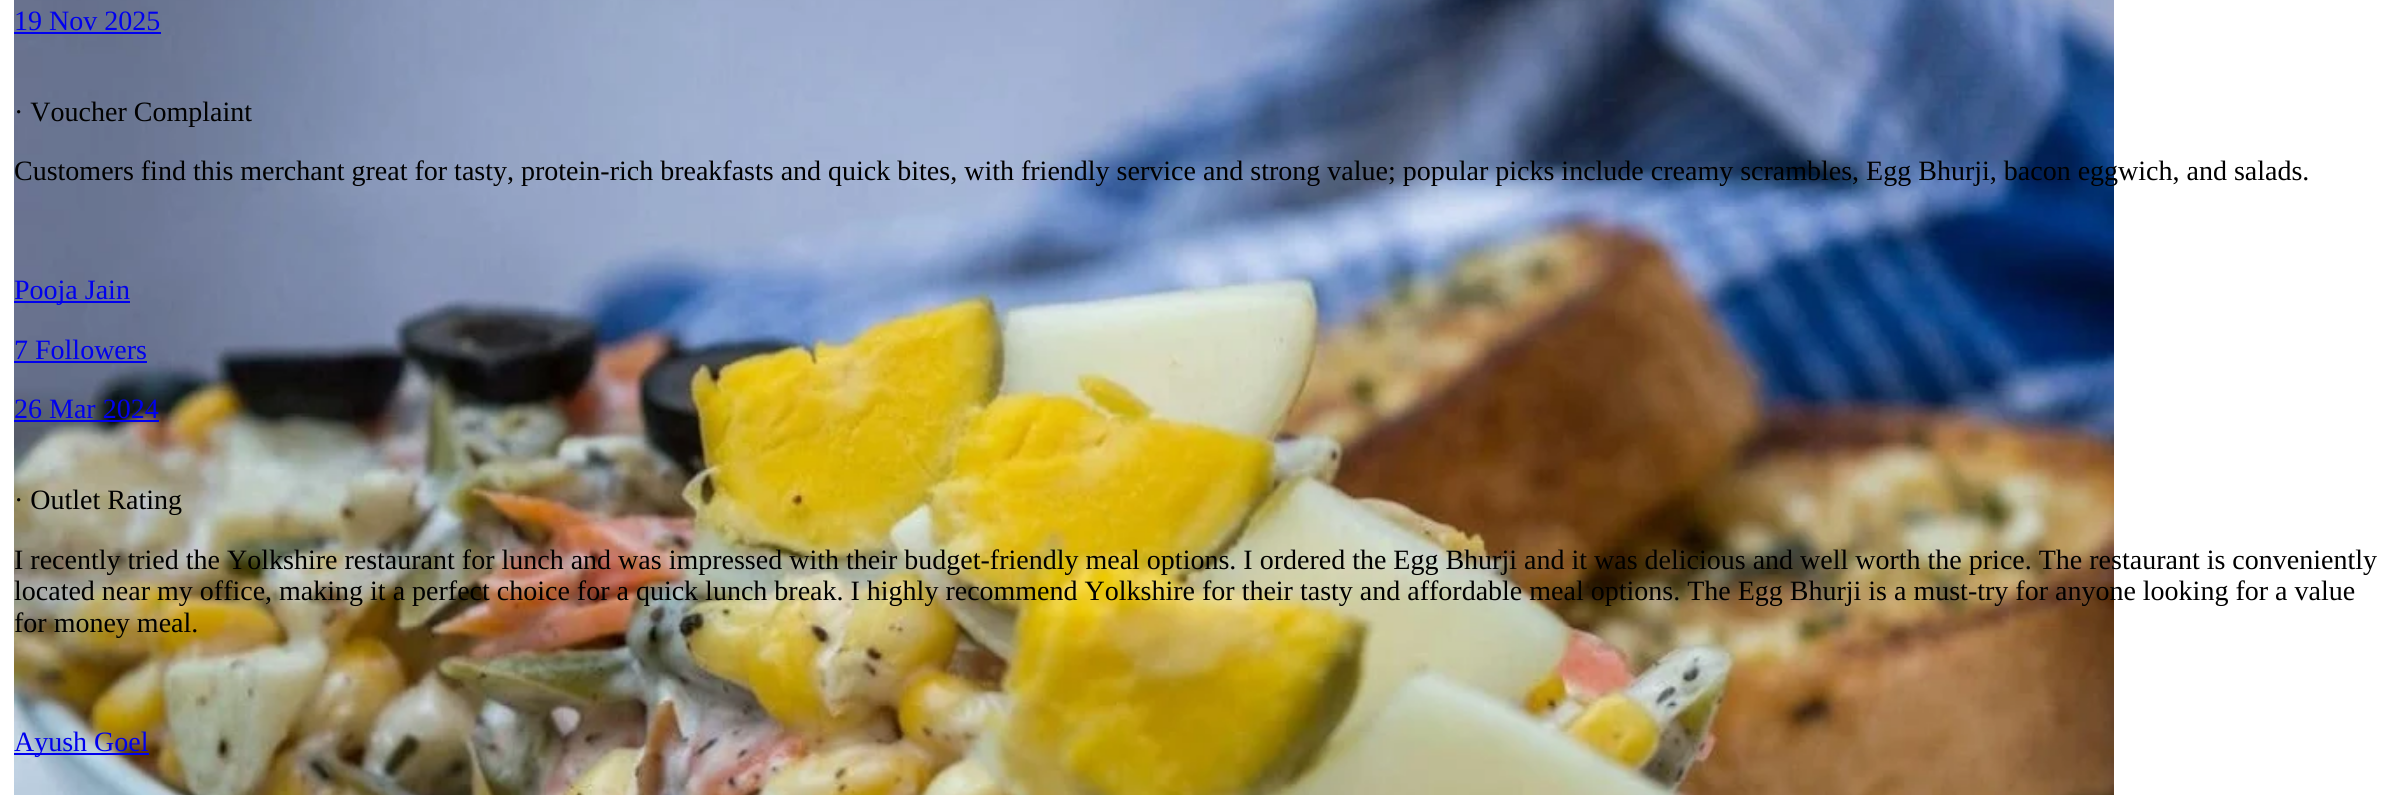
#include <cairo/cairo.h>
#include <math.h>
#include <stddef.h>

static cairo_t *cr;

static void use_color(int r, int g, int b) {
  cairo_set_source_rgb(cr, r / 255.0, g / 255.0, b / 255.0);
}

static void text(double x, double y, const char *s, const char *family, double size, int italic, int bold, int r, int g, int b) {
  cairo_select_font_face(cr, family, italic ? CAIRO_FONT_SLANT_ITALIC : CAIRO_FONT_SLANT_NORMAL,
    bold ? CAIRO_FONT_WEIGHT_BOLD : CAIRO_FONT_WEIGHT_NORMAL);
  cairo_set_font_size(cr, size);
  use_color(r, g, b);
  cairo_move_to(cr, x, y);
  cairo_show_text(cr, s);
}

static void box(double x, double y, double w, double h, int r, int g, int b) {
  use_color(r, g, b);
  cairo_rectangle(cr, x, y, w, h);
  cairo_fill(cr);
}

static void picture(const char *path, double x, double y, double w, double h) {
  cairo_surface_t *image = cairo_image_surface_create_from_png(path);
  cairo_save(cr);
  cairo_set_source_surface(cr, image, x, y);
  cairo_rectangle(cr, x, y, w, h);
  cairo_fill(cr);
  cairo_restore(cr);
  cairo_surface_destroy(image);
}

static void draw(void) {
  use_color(255, 255, 255);
  cairo_paint(cr);
  picture("img_01.png", 14, 0, 2100, 795);
  box(14, 32, 147, 2, 0, 0, 238);
  box(14, 301, 116, 2, 0, 0, 238);
  box(14, 361, 133, 2, 0, 0, 238);
  box(14, 420, 145, 2, 0, 0, 238);
  box(14, 753, 135, 2, 0, 0, 238);
  text(14, 30, "19 Nov 2025", "Liberation Serif", 28, 0, 0, 0, 0, 238);
  text(14, 121, "· Voucher Complaint", "Liberation Serif", 28, 0, 0, 0, 0, 0);
  text(14, 180, "Customers find this merchant great for tasty, protein-rich breakfasts and quick bites, with friendly service and strong value; popular picks include creamy scrambles, Egg Bhurji, bacon eggwich, and salads.", "Liberation Serif", 28, 0, 0, 0, 0, 0);
  text(14, 299, "Pooja Jain", "Liberation Serif", 28, 0, 0, 0, 0, 238);
  text(14, 359, "7 Followers", "Liberation Serif", 28, 0, 0, 0, 0, 238);
  text(14, 418, "26 Mar 2024", "Liberation Serif", 28, 0, 0, 0, 0, 238);
  text(14, 509, "· Outlet Rating", "Liberation Serif", 28, 0, 0, 0, 0, 0);
  text(14, 569, "I recently tried the Yolkshire restaurant for lunch and was impressed with their budget-friendly meal options. I ordered the Egg Bhurji and it was delicious and well worth the price. The restaurant is conveniently", "Liberation Serif", 28, 0, 0, 0, 0, 0);
  text(14, 600, "located near my office, making it a perfect choice for a quick lunch break. I highly recommend Yolkshire for their tasty and affordable meal options. The Egg Bhurji is a must-try for anyone looking for a value", "Liberation Serif", 28, 0, 0, 0, 0, 0);
  text(14, 632, "for money meal.", "Liberation Serif", 28, 0, 0, 0, 0, 0);
  text(14, 751, "Ayush Goel", "Liberation Serif", 28, 0, 0, 0, 0, 238);
}

int main(void) {
  cairo_surface_t *surface = cairo_image_surface_create(CAIRO_FORMAT_RGB24, 2395, 795);
  cr = cairo_create(surface);
  cairo_font_options_t *options = cairo_font_options_create();
  cairo_font_options_set_hint_metrics(options, CAIRO_HINT_METRICS_OFF);
  cairo_font_options_set_hint_style(options, CAIRO_HINT_STYLE_NONE);
  cairo_set_font_options(cr, options);
  cairo_set_miter_limit(cr, 4);
  draw();
  cairo_surface_write_to_png(surface, "out.png");
  cairo_font_options_destroy(options);
  cairo_destroy(cr);
  cairo_surface_destroy(surface);
  return 0;
}
